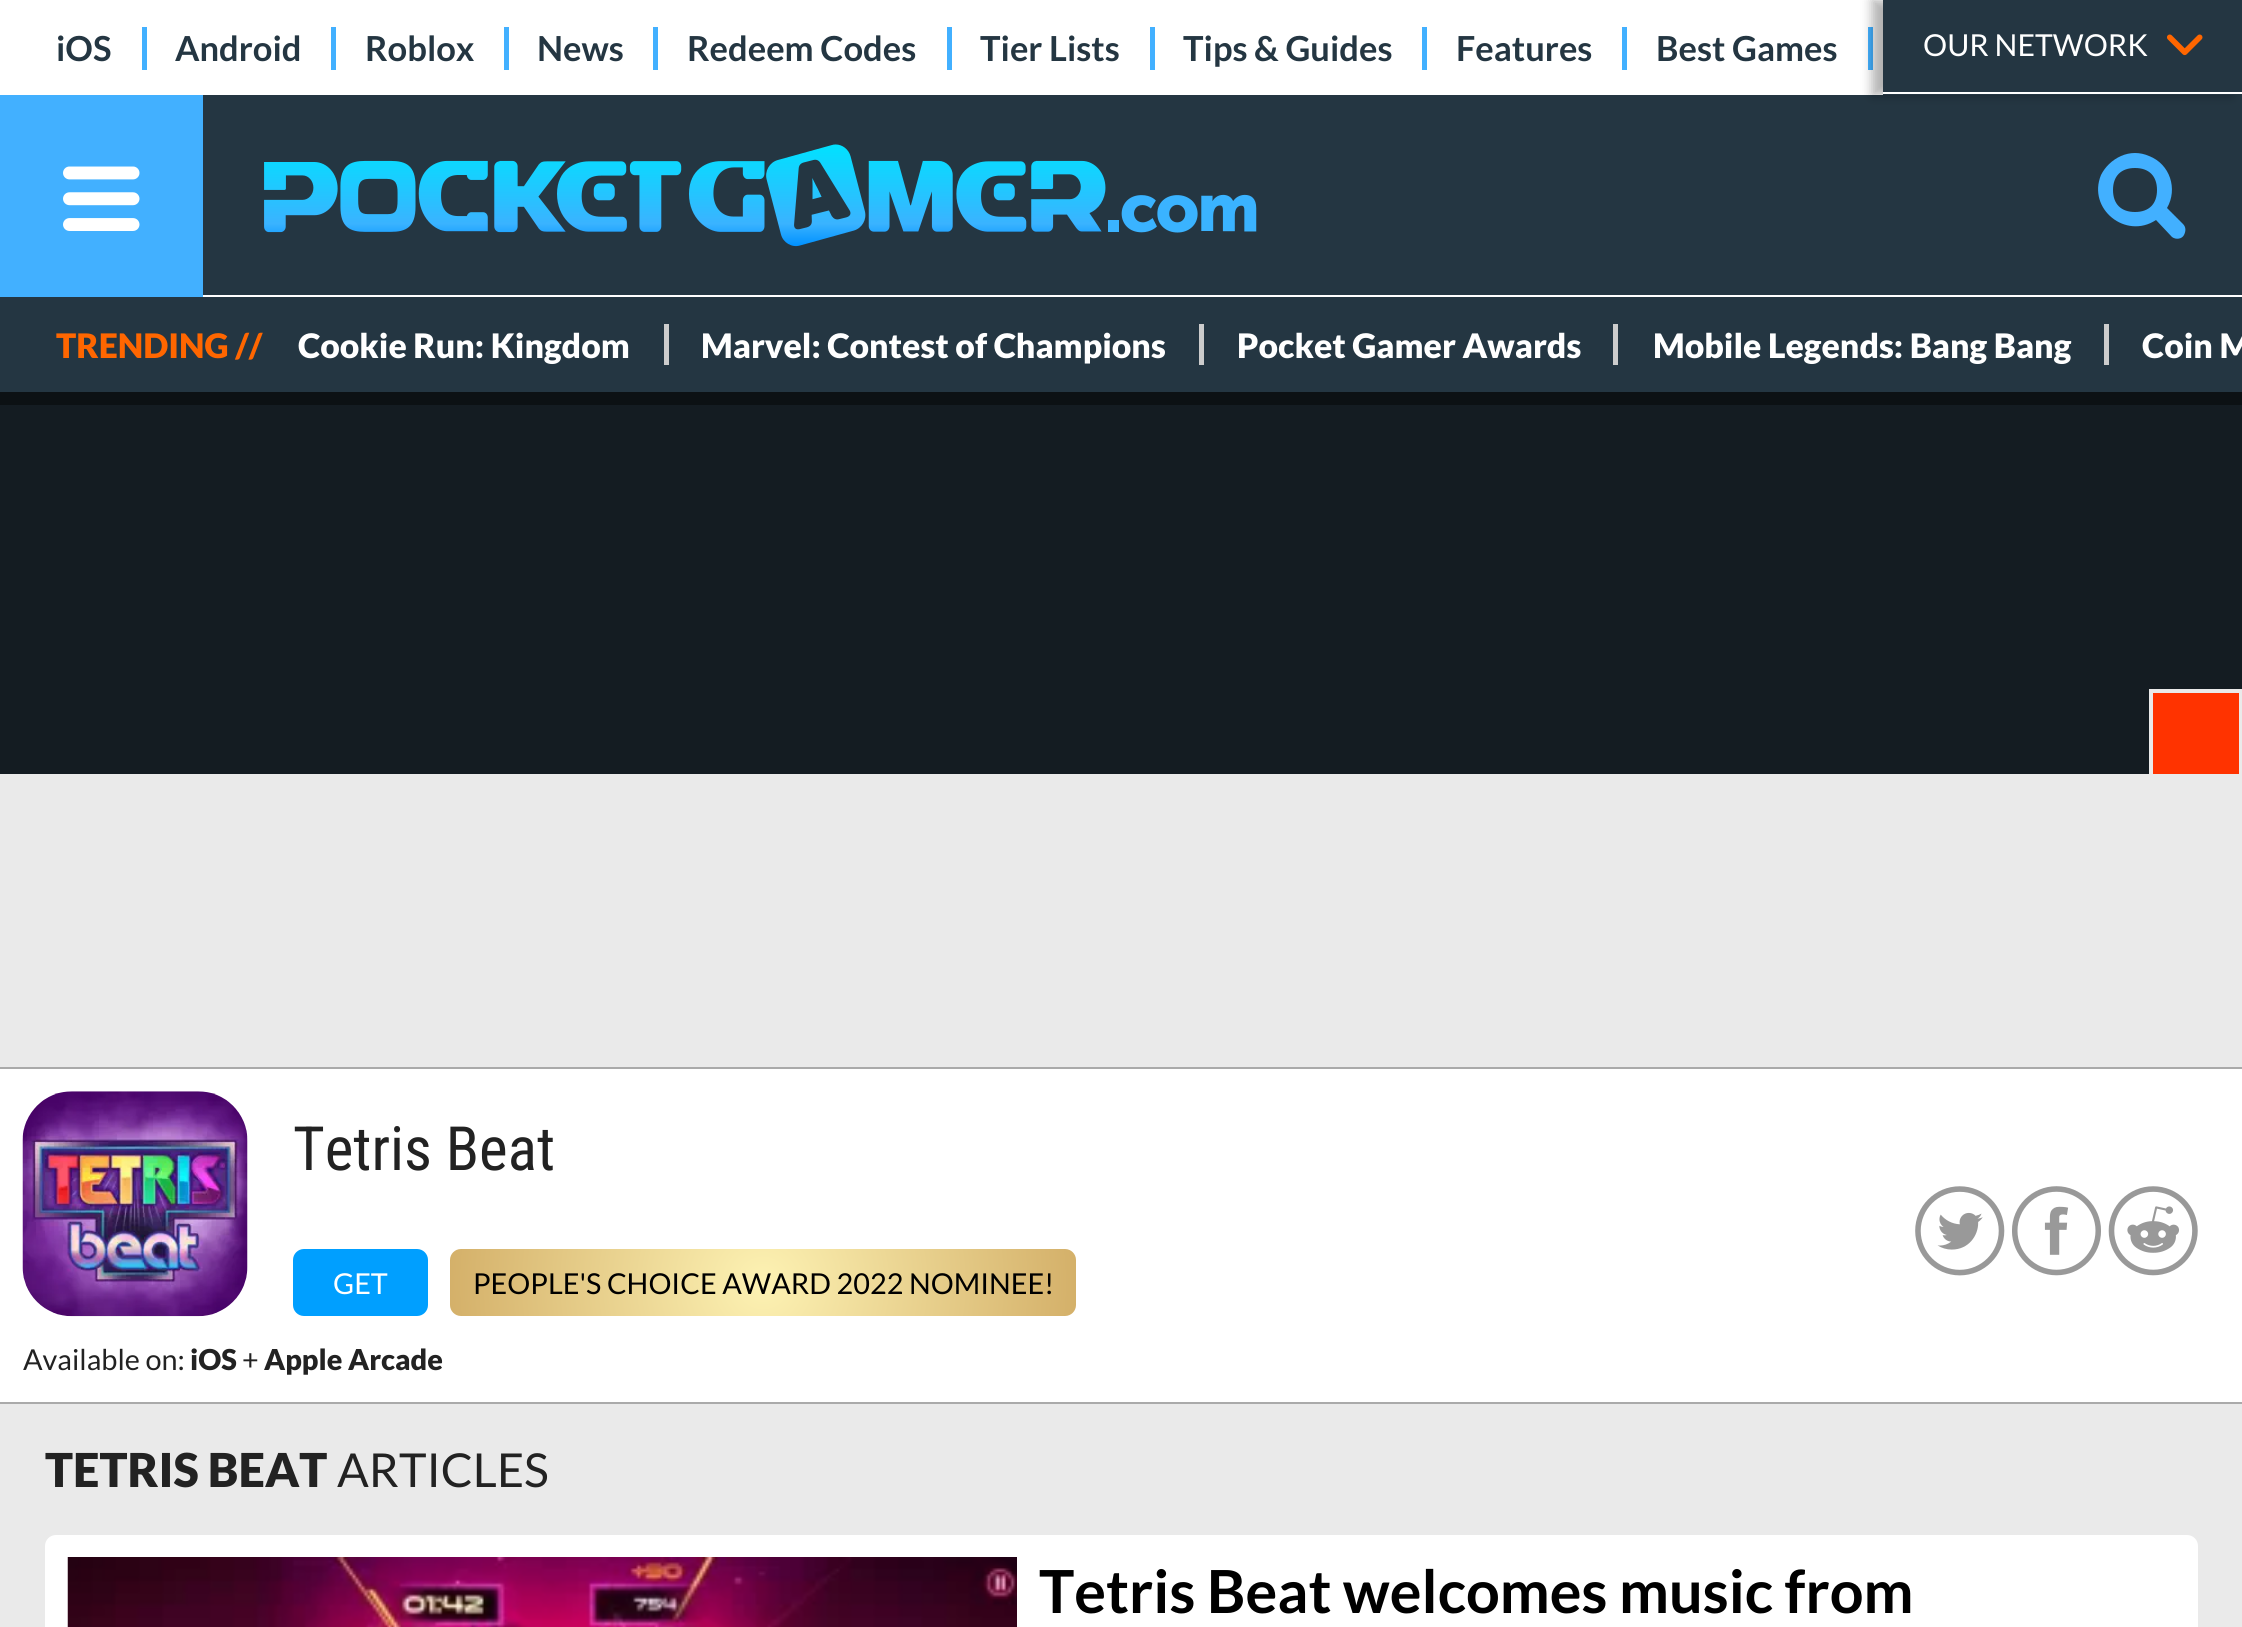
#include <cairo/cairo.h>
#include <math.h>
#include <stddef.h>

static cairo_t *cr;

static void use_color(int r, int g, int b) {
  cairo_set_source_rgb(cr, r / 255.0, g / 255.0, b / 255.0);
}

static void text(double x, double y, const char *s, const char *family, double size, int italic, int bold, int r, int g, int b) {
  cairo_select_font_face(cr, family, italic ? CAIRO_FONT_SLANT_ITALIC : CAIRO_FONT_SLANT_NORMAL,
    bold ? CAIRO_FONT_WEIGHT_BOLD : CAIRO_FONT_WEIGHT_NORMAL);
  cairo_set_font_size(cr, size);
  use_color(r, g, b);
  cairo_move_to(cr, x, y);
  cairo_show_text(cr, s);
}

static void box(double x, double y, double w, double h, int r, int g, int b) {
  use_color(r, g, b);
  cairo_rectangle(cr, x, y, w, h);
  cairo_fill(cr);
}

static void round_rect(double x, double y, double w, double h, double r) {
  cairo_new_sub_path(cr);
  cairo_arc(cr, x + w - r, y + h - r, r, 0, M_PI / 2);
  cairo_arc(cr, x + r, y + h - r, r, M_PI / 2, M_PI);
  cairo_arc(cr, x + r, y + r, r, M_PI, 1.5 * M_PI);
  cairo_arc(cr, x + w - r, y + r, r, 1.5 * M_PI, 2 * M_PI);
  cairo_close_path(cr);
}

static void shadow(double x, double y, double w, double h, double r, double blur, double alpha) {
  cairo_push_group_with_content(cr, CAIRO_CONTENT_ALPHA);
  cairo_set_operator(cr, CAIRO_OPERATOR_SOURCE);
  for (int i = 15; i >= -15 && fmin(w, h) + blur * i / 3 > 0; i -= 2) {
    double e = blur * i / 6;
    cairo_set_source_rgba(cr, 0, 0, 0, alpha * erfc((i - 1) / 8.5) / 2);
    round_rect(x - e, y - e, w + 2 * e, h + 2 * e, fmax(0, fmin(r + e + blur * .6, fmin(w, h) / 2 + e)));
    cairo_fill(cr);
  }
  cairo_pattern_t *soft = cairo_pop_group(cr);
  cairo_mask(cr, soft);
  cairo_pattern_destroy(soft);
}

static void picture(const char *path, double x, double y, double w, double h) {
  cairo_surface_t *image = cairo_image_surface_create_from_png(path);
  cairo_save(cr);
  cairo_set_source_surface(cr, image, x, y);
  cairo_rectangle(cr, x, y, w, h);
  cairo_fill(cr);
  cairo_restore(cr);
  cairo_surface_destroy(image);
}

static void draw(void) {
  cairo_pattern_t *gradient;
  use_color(20, 28, 34);
  cairo_paint(cr);
  box(0, 392, 2242, 13, 12, 17, 20);
  box(0, 0, 2242, 297, 255, 255, 255);
  box(142, 27, 5, 43, 66, 176, 255);
  box(331, 27, 5, 43, 66, 176, 255);
  box(504, 27, 5, 43, 66, 176, 255);
  box(653, 27, 5, 43, 66, 176, 255);
  box(947, 27, 5, 43, 66, 176, 255);
  box(1150, 27, 5, 43, 66, 176, 255);
  box(1422, 27, 5, 43, 66, 176, 255);
  box(1622, 27, 5, 43, 66, 176, 255);
  box(1868, 27, 5, 43, 66, 176, 255);
  box(203, 95, 2039, 200, 36, 54, 66);
  use_color(0, 0, 0);
  shadow(1872, 0, 360, 95, 0, 5.5, 0.3);
  box(1883, 0, 359, 95, 36, 54, 66);
  box(1883, 92, 359, 2, 255, 255, 255);
  picture("img_01.png", 2167, 34, 36, 22);
  box(0, 95, 203, 202, 66, 176, 255);
  picture("img_02.png", 63, 166, 77, 65);
  picture("img_03.png", 264, 144, 993, 103);
  cairo_new_path(cr);
  cairo_move_to(cr, 2113, 190);
  cairo_curve_to(cr, 2113, 176, 2121, 168, 2135, 168);
  cairo_curve_to(cr, 2149, 168, 2157, 176, 2157, 190);
  cairo_curve_to(cr, 2157, 204, 2149, 212, 2135, 212);
  cairo_curve_to(cr, 2121, 212, 2113, 204, 2113, 190);
  cairo_move_to(cr, 2183, 224);
  cairo_line_to(cr, 2167, 208);
  cairo_curve_to(cr, 2178, 189, 2170, 164, 2149, 156);
  cairo_curve_to(cr, 2140, 152, 2130, 152, 2121, 156);
  cairo_curve_to(cr, 2112, 160, 2105, 167, 2101, 175);
  cairo_curve_to(cr, 2087, 209, 2126, 240, 2156, 220);
  cairo_line_to(cr, 2172, 237);
  cairo_curve_to(cr, 2176, 240, 2182, 239, 2184, 235);
  cairo_curve_to(cr, 2186, 231, 2186, 227, 2183, 224);
  cairo_fill(cr);
  box(0, 297, 2242, 95, 36, 54, 66);
  box(664, 324, 5, 41, 204, 204, 204);
  box(1199, 324, 5, 41, 204, 204, 204);
  box(1613, 324, 5, 41, 204, 204, 204);
  box(2104, 324, 5, 41, 204, 204, 204);
  box(2149, 689, 93, 85, 234, 234, 234);
  box(2153, 693, 86, 81, 255, 51, 0);
  box(0, 774, 2242, 293, 234, 234, 234);
  box(0, 1404, 2242, 223, 234, 234, 234);
  box(0, 1069, 2242, 333, 255, 255, 255);
  box(0, 1067, 2242, 2, 170, 170, 170);
  box(0, 1402, 2242, 2, 170, 170, 170);
  picture("img_04.png", 22, 1091, 226, 226);
  picture("img_05.png", 1915, 1186, 90, 90);
  picture("img_06.png", 2012, 1186, 89, 90);
  picture("img_07.png", 2108, 1186, 90, 90);
  use_color(0, 159, 255);
  round_rect(293, 1249, 135, 67, 11);
  cairo_fill(cr);
  gradient = cairo_pattern_create_radial(763, 1283, 0, 763, 1283, 315);
  cairo_pattern_add_color_stop_rgba(gradient, 0, 0.992, 0.949, 0.702, 1);
  cairo_pattern_add_color_stop_rgba(gradient, 1, 0.831, 0.69, 0.412, 1);
  cairo_set_source(cr, gradient);
  cairo_pattern_destroy(gradient);
  round_rect(450, 1249, 626, 67, 11);
  cairo_fill(cr);
  use_color(255, 255, 255);
  round_rect(45, 1535, 2153, 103, 11);
  cairo_fill(cr);
  picture("img_08.png", 67, 1557, 950, 70);
  text(56, 61, "iOS", "Lato", 34.5, 0, 1, 36, 54, 66);
  text(175, 61, "Android", "Lato", 34.5, 0, 1, 36, 54, 66);
  text(365, 61, "Roblox", "Lato", 34.5, 0, 1, 36, 54, 66);
  text(537, 61, "News", "Lato", 34.5, 0, 1, 36, 54, 66);
  text(687, 61, "Redeem Codes", "Lato", 34.5, 0, 1, 36, 54, 66);
  text(980, 61, "Tier Lists", "Lato", 34.5, 0, 1, 36, 54, 66);
  text(1183, 61, "Tips & Guides", "Lato", 34.5, 0, 1, 36, 54, 66);
  text(1456, 61, "Features", "Lato", 34.5, 0, 1, 36, 54, 66);
  text(1656, 61, "Best Games", "Lato", 34.5, 0, 1, 36, 54, 66);
  text(1923, 56, "OUR NETWORK", "Lato", 30.25, 0, 0, 255, 255, 255);
  text(56, 358, "TRENDING //", "Lato Black", 33.75, 0, 0, 255, 102, 0);
  text(298, 358, "Cookie Run: Kingdom", "Lato Black", 33.75, 0, 0, 255, 255, 255);
  text(701, 358, "Marvel: Contest of Champions", "Lato Black", 33.75, 0, 0, 255, 255, 255);
  text(1237, 358, "Pocket Gamer Awards", "Lato Black", 33.75, 0, 0, 255, 255, 255);
  text(1653, 358, "Mobile Legends: Bang Bang", "Lato Black", 33.75, 0, 0, 255, 255, 255);
  text(2142, 358, "Coin M", "Lato Black", 33.75, 0, 0, 255, 255, 255);
  text(293, 1170, "Tetris Beat", "Roboto Condensed", 61, 0, 0, 34, 34, 34);
  text(333, 1294, "GET", "Lato", 28.8, 0, 0, 255, 255, 255);
  text(473, 1294, "PEOPLE'S CHOICE AWARD 2022 NOMINEE!", "Lato", 28.8, 0, 0, 0, 0, 0);
  text(23, 1370, "Available on:", "Lato", 28.8, 0, 0, 34, 34, 34);
  text(190, 1370, "iOS", "Lato Black", 28.8, 0, 0, 34, 34, 34);
  text(242, 1370, "+", "Lato", 28.8, 0, 0, 34, 34, 34);
  text(264, 1370, "Apple Arcade", "Lato Black", 28.8, 0, 0, 34, 34, 34);
  text(45, 1487, "TETRIS BEAT", "Lato Black", 46.75, 0, 0, 34, 34, 34);
  text(337, 1487, "ARTICLES", "Lato", 46.75, 0, 0, 34, 34, 34);
  text(1039, 1613, "Tetris Beat welcomes music from", "Lato", 59.4, 0, 1, 0, 0, 0);
}

int main(void) {
  cairo_surface_t *surface = cairo_image_surface_create(CAIRO_FORMAT_RGB24, 2242, 1627);
  cr = cairo_create(surface);
  cairo_font_options_t *options = cairo_font_options_create();
  cairo_font_options_set_hint_metrics(options, CAIRO_HINT_METRICS_OFF);
  cairo_font_options_set_hint_style(options, CAIRO_HINT_STYLE_NONE);
  cairo_set_font_options(cr, options);
  cairo_set_miter_limit(cr, 4);
  draw();
  cairo_surface_write_to_png(surface, "out.png");
  cairo_font_options_destroy(options);
  cairo_destroy(cr);
  cairo_surface_destroy(surface);
  return 0;
}
